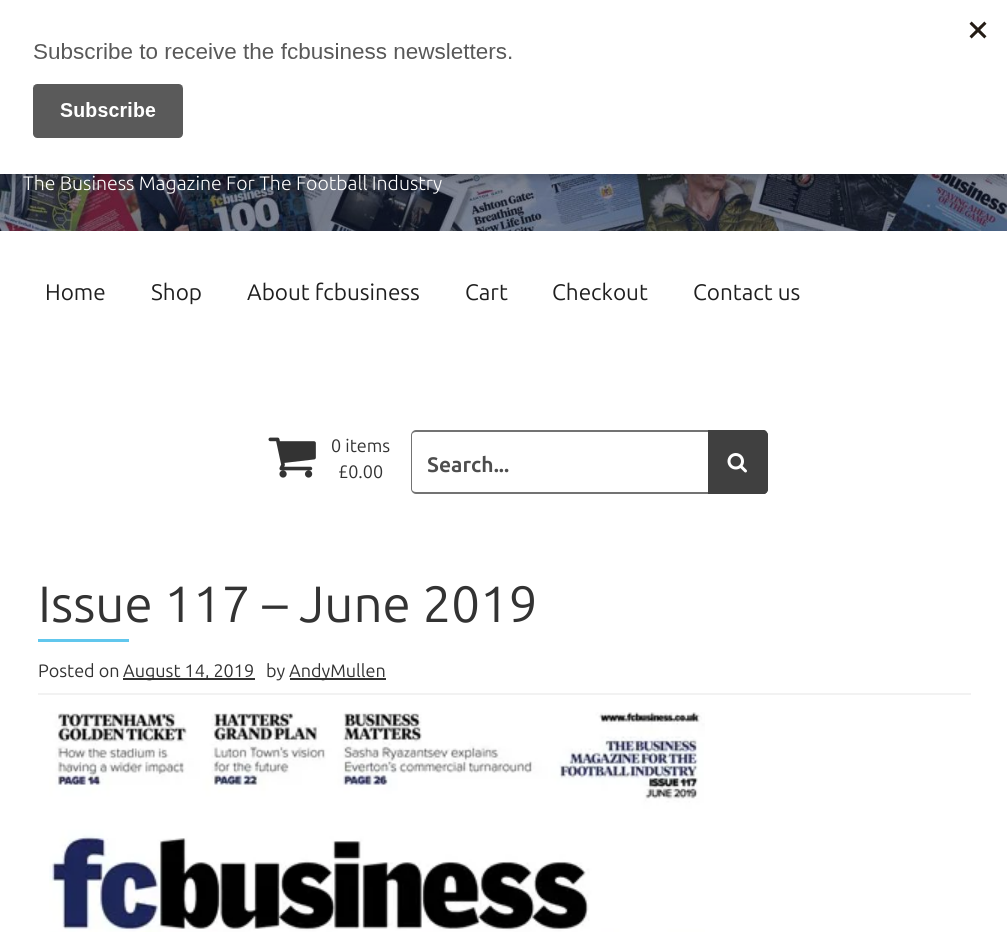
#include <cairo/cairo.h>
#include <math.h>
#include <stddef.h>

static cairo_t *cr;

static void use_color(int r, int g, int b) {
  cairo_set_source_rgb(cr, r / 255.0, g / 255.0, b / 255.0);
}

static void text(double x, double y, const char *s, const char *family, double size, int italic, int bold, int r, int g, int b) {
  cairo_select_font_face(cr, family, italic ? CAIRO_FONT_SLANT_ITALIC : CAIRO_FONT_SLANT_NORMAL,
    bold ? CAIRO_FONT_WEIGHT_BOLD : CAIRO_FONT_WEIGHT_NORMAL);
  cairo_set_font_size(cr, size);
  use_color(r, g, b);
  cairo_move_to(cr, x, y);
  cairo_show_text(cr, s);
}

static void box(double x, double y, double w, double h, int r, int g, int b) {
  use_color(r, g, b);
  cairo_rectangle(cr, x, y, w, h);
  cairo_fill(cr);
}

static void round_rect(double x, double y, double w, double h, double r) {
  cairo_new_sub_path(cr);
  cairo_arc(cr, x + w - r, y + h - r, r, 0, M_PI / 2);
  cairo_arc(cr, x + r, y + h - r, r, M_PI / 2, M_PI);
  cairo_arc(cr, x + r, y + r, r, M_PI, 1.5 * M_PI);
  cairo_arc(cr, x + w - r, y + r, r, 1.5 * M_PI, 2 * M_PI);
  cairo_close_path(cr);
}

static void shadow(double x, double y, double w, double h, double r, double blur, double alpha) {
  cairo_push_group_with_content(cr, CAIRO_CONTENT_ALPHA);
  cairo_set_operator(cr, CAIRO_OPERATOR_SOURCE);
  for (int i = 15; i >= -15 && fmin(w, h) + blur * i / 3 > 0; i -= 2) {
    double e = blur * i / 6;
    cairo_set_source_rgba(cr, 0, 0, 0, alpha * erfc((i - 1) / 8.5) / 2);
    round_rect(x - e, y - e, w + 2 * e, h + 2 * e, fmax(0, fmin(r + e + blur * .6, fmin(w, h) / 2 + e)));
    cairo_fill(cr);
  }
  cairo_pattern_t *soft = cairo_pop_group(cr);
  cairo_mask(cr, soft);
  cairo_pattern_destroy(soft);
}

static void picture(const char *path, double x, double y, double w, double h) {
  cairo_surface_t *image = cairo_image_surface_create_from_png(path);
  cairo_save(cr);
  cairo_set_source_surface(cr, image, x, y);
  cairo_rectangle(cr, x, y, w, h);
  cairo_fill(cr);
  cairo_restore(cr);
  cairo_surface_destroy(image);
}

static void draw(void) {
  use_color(255, 255, 255);
  cairo_paint(cr);
  picture("img_02.png", 0, 174, 1007, 57);
  use_color(0, 0, 0);
  shadow(0, 5, 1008, 174, 0, 4.5, 0.2);
  box(0, 0, 1007, 174, 255, 255, 255);
  picture("img_01.png", 32, 21, 955, 117);
  picture("img_03.png", 268, 437, 48, 41);
  use_color(115, 115, 115);
  cairo_set_fill_rule(cr, CAIRO_FILL_RULE_EVEN_ODD);
  cairo_new_path(cr);
  cairo_move_to(cr, 416, 430);
  cairo_line_to(cr, 710, 430);
  cairo_curve_to(cr, 712, 430, 714, 433, 714, 435);
  cairo_line_to(cr, 714, 489);
  cairo_curve_to(cr, 714, 491, 712, 494, 710, 494);
  cairo_line_to(cr, 416, 494);
  cairo_curve_to(cr, 413, 494, 411, 491, 411, 489);
  cairo_line_to(cr, 411, 435);
  cairo_curve_to(cr, 411, 433, 413, 430, 416, 430);
  cairo_close_path(cr);
  cairo_move_to(cr, 416, 432);
  cairo_line_to(cr, 710, 432);
  cairo_curve_to(cr, 712, 432, 714, 433, 714, 435);
  cairo_line_to(cr, 714, 489);
  cairo_curve_to(cr, 714, 491, 712, 492, 710, 492);
  cairo_line_to(cr, 416, 492);
  cairo_curve_to(cr, 414, 492, 412, 491, 412, 489);
  cairo_line_to(cr, 412, 435);
  cairo_curve_to(cr, 412, 433, 414, 432, 416, 432);
  cairo_close_path(cr);
  cairo_fill(cr);
  use_color(64, 64, 64);
  cairo_new_path(cr);
  cairo_move_to(cr, 708, 431);
  cairo_line_to(cr, 763, 431);
  cairo_curve_to(cr, 766, 431, 768, 433, 768, 436);
  cairo_line_to(cr, 768, 489);
  cairo_curve_to(cr, 768, 492, 766, 494, 763, 494);
  cairo_line_to(cr, 708, 494);
  cairo_close_path(cr);
  cairo_fill(cr);
  cairo_new_path(cr);
  cairo_move_to(cr, 708, 430);
  cairo_line_to(cr, 764, 430);
  cairo_curve_to(cr, 766, 430, 768, 433, 768, 435);
  cairo_line_to(cr, 768, 489);
  cairo_curve_to(cr, 768, 491, 766, 494, 764, 494);
  cairo_line_to(cr, 708, 494);
  cairo_close_path(cr);
  cairo_move_to(cr, 708, 432);
  cairo_line_to(cr, 764, 432);
  cairo_curve_to(cr, 765, 432, 766, 433, 766, 435);
  cairo_line_to(cr, 766, 489);
  cairo_curve_to(cr, 766, 491, 765, 492, 764, 492);
  cairo_line_to(cr, 708, 492);
  cairo_close_path(cr);
  cairo_fill(cr);
  picture("img_04.png", 727, 453, 20, 20);
  box(38, 639, 91, 3, 97, 199, 237);
  box(38, 693, 933, 2, 242, 242, 242);
  box(123, 678, 132, 2, 51, 51, 51);
  box(290, 678, 96, 2, 51, 51, 51);
  picture("img_05.png", 49, 712, 656, 220);
  text(23, 190, "The Business Magazine For The Football Industry", "Ubuntu Light", 19.5, 0, 0, 255, 255, 255);
  text(45, 300, "Home", "Ubuntu", 22.5, 0, 0, 31, 31, 31);
  text(151, 300, "Shop", "Ubuntu", 22.5, 0, 0, 31, 31, 31);
  text(247, 300, "About fcbusiness", "Ubuntu", 22.5, 0, 0, 31, 31, 31);
  text(465, 300, "Cart", "Ubuntu", 22.5, 0, 0, 31, 31, 31);
  text(552, 300, "Checkout", "Ubuntu", 22.5, 0, 0, 31, 31, 31);
  text(693, 300, "Contact us", "Ubuntu", 22.5, 0, 0, 31, 31, 31);
  text(331, 452, "0 items", "Ubuntu", 18, 0, 0, 51, 51, 51);
  text(338, 478, "£0.00", "Ubuntu", 18, 0, 0, 51, 51, 51);
  cairo_save(cr);
  cairo_set_fill_rule(cr, CAIRO_FILL_RULE_WINDING);
  cairo_rectangle(cr, 428, 453, 265, 24);
  cairo_clip(cr);
  text(427, 472, "Search...", "Ubuntu", 21, 0, 1, 77, 77, 77);
  cairo_restore(cr);
  text(38, 622, "Issue 117 – June 2019", "Ubuntu", 51, 0, 0, 51, 51, 51);
  text(38, 677, "Posted on", "Ubuntu", 18, 0, 0, 51, 51, 51);
  text(123, 677, "August 14, 2019", "Ubuntu", 18, 0, 0, 51, 51, 51);
  text(266, 677, "by", "Ubuntu", 18, 0, 0, 51, 51, 51);
  text(289, 677, "AndyMullen", "Ubuntu", 18, 0, 0, 51, 51, 51);
}

int main(void) {
  cairo_surface_t *surface = cairo_image_surface_create(CAIRO_FORMAT_RGB24, 1007, 932);
  cr = cairo_create(surface);
  cairo_font_options_t *options = cairo_font_options_create();
  cairo_font_options_set_hint_metrics(options, CAIRO_HINT_METRICS_OFF);
  cairo_font_options_set_hint_style(options, CAIRO_HINT_STYLE_NONE);
  cairo_set_font_options(cr, options);
  cairo_set_miter_limit(cr, 4);
  draw();
  cairo_surface_write_to_png(surface, "out.png");
  cairo_font_options_destroy(options);
  cairo_destroy(cr);
  cairo_surface_destroy(surface);
  return 0;
}
